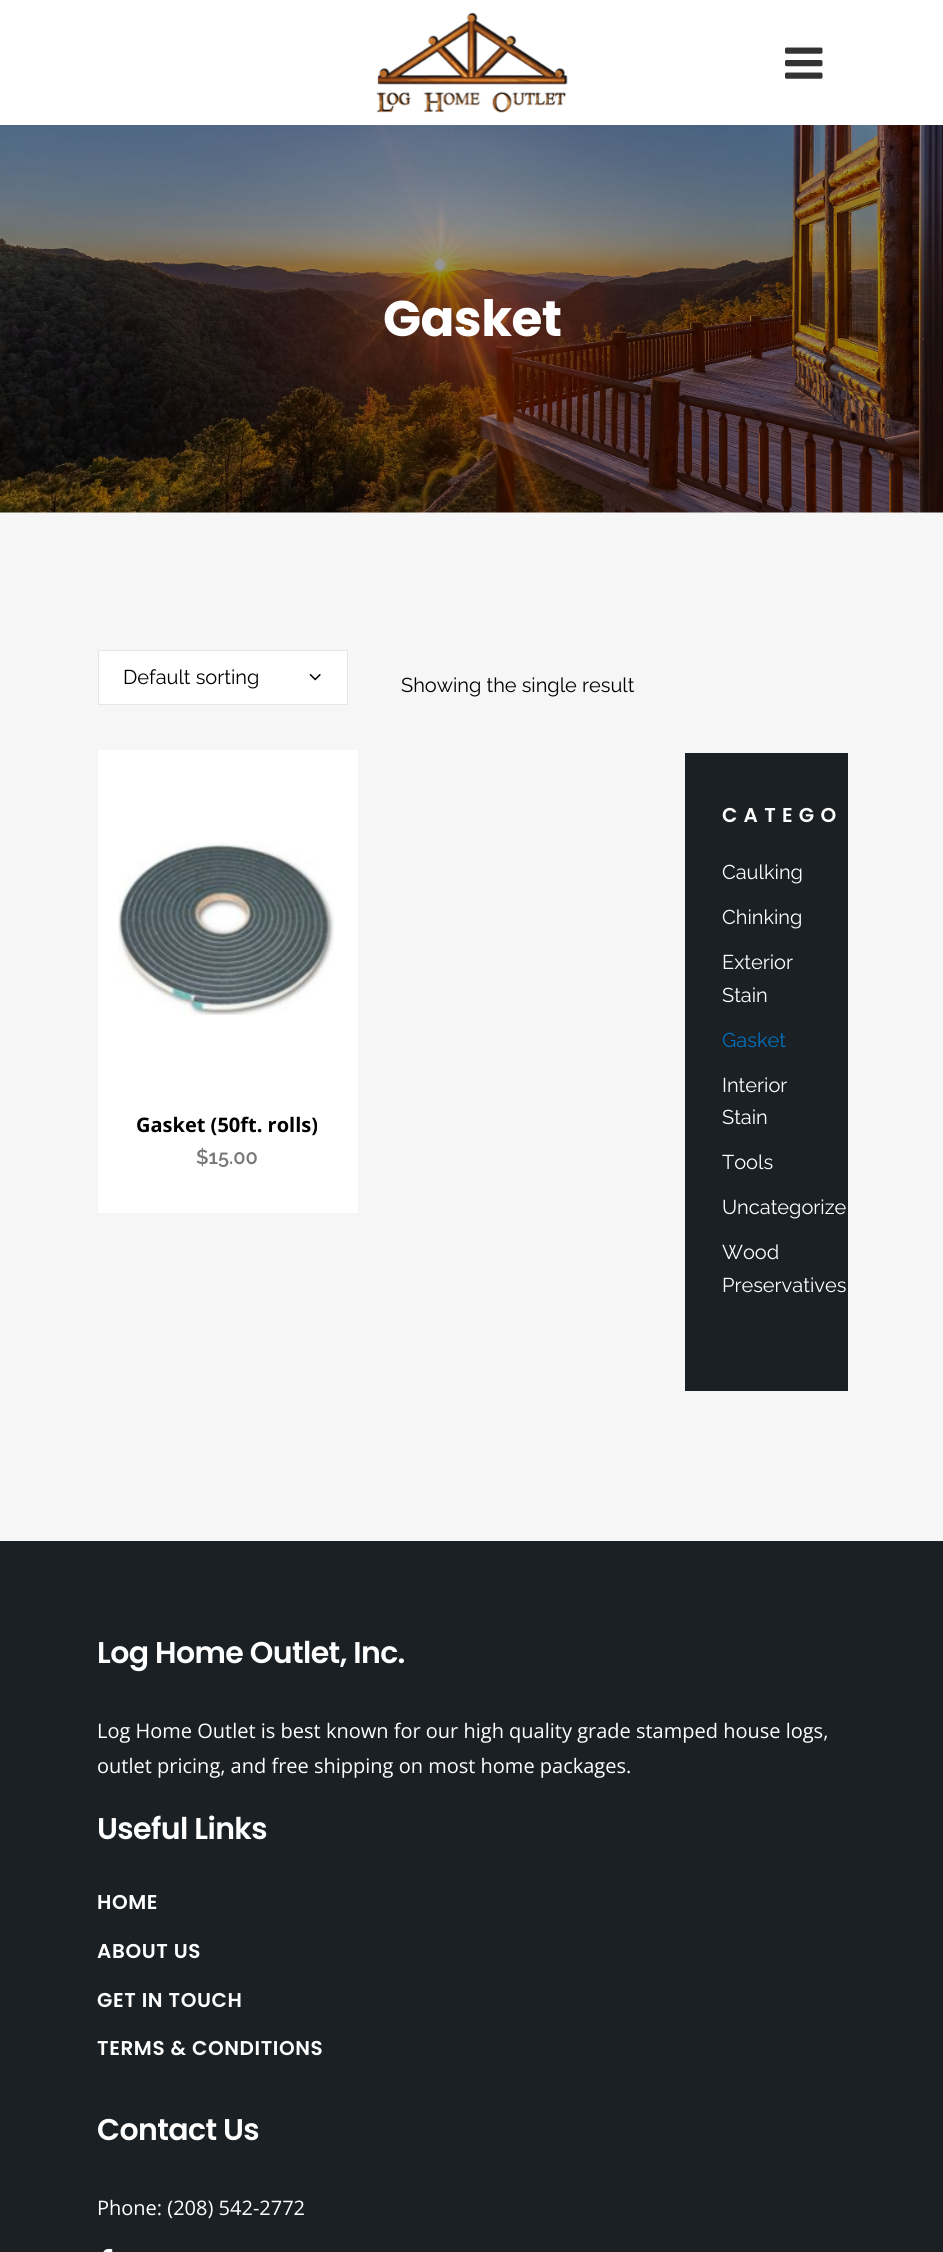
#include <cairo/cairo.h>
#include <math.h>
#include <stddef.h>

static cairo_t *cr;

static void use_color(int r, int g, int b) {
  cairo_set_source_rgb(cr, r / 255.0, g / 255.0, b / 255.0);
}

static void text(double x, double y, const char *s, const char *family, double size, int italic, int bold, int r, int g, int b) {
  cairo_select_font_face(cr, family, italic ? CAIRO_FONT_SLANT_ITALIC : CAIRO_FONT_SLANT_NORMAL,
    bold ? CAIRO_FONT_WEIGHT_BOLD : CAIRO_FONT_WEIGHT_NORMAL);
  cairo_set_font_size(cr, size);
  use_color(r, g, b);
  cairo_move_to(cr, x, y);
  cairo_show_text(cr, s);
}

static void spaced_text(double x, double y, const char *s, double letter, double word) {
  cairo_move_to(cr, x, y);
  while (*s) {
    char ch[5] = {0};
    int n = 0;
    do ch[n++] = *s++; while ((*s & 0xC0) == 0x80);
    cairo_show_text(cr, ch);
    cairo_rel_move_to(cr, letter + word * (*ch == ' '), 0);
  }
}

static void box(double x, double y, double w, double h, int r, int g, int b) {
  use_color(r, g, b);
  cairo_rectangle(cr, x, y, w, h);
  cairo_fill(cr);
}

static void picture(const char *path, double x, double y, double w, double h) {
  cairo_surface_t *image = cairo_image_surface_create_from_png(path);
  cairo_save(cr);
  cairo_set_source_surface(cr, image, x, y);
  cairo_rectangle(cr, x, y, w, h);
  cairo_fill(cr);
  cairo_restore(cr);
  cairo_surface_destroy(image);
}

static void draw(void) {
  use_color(246, 246, 246);
  cairo_paint(cr);
  box(0, 0, 943, 125, 255, 255, 255);
  picture("img_01.png", 376, 12, 192, 101);
  picture("img_02.png", 785, 47, 38, 32);
  picture("img_03.png", 0, 125, 943, 388);
  cairo_rectangle(cr, 98.5, 650.5, 249, 54);
  cairo_fill_preserve(cr);
  use_color(230, 230, 230);
  cairo_set_line_width(cr, 1);
  cairo_stroke(cr);
  picture("img_04.png", 309, 673, 12, 8);
  box(98, 750, 260, 463, 255, 255, 255);
  picture("img_05.png", 118, 842, 217, 173);
  box(685, 753, 163, 638, 27, 32, 36);
  box(0, 1541, 943, 711, 27, 32, 36);
  picture("img_06.png", 103, 2248, 10, 4);
  cairo_select_font_face(cr, "Poppins", CAIRO_FONT_SLANT_NORMAL, CAIRO_FONT_WEIGHT_BOLD);
  cairo_set_font_size(cr, 50);
  use_color(255, 255, 255);
  spaced_text(383, 336, "Gasket", -0.6, 0);
  text(123, 684, "Default sorting", "Raleway", 20, 0, 0, 0, 0, 0);
  text(401, 692, "Showing the single result", "Raleway", 20, 0, 0, 0, 0, 0);
  text(136, 1132, "Gasket (50ft. rolls)", "Open Sans", 20, 0, 1, 0, 0, 0);
  text(196, 1164, "$15.00", "Raleway SemiBold", 20, 0, 0, 119, 119, 119);
  cairo_select_font_face(cr, "Poppins SemiBold", CAIRO_FONT_SLANT_NORMAL, CAIRO_FONT_WEIGHT_NORMAL);
  use_color(255, 255, 255);
  spaced_text(722, 822, "CATEGO", 6.25, 0);
  text(722, 879, "Caulking", "Raleway", 20, 0, 0, 255, 255, 255);
  text(722, 924, "Chinking", "Raleway", 20, 0, 0, 255, 255, 255);
  text(722, 969, "Exterior", "Raleway", 20, 0, 0, 255, 255, 255);
  text(722, 1002, "Stain", "Raleway", 20, 0, 0, 255, 255, 255);
  text(722, 1047, "Gasket", "Raleway", 20, 0, 0, 0, 114, 187);
  text(722, 1092, "Interior", "Raleway", 20, 0, 0, 255, 255, 255);
  text(722, 1124, "Stain", "Raleway", 20, 0, 0, 255, 255, 255);
  text(722, 1169, "Tools", "Raleway", 20, 0, 0, 255, 255, 255);
  text(722, 1214, "Uncategorize", "Raleway", 20, 0, 0, 255, 255, 255);
  text(722, 1259, "Wood", "Raleway", 20, 0, 0, 255, 255, 255);
  text(722, 1292, "Preservatives", "Raleway", 20, 0, 0, 255, 255, 255);
  cairo_select_font_face(cr, "Poppins SemiBold", CAIRO_FONT_SLANT_NORMAL, CAIRO_FONT_WEIGHT_NORMAL);
  cairo_set_font_size(cr, 30);
  spaced_text(97, 1663, "Log Home Outlet, Inc.", -0.6, 0);
  text(97, 1738, "Log Home Outlet is best known for our high quality grade stamped house logs,", "Open Sans", 20, 0, 0, 255, 255, 255);
  text(97, 1773, "outlet pricing, and free shipping on most home packages.", "Open Sans", 20, 0, 0, 255, 255, 255);
  cairo_select_font_face(cr, "Poppins SemiBold", CAIRO_FONT_SLANT_NORMAL, CAIRO_FONT_WEIGHT_NORMAL);
  cairo_set_font_size(cr, 30);
  spaced_text(97, 1839, "Useful Links", -0.6, 0);
  cairo_set_font_size(cr, 20);
  spaced_text(97, 1909, "HOME", 0.6, 0);
  spaced_text(97, 1958, "ABOUT US", 0.6, 0);
  spaced_text(97, 2007, "GET IN TOUCH", 0.6, 0);
  spaced_text(97, 2055, "TERMS & CONDITIONS", 0.6, 0);
  cairo_set_font_size(cr, 30);
  spaced_text(97, 2140, "Contact Us", -0.6, 0);
  text(97, 2215, "Phone: (208) 542-2772", "Open Sans", 20, 0, 0, 255, 255, 255);
}

int main(void) {
  cairo_surface_t *surface = cairo_image_surface_create(CAIRO_FORMAT_RGB24, 943, 2252);
  cr = cairo_create(surface);
  cairo_font_options_t *options = cairo_font_options_create();
  cairo_font_options_set_hint_metrics(options, CAIRO_HINT_METRICS_OFF);
  cairo_font_options_set_hint_style(options, CAIRO_HINT_STYLE_NONE);
  cairo_set_font_options(cr, options);
  cairo_set_miter_limit(cr, 4);
  draw();
  cairo_surface_write_to_png(surface, "out.png");
  cairo_font_options_destroy(options);
  cairo_destroy(cr);
  cairo_surface_destroy(surface);
  return 0;
}
